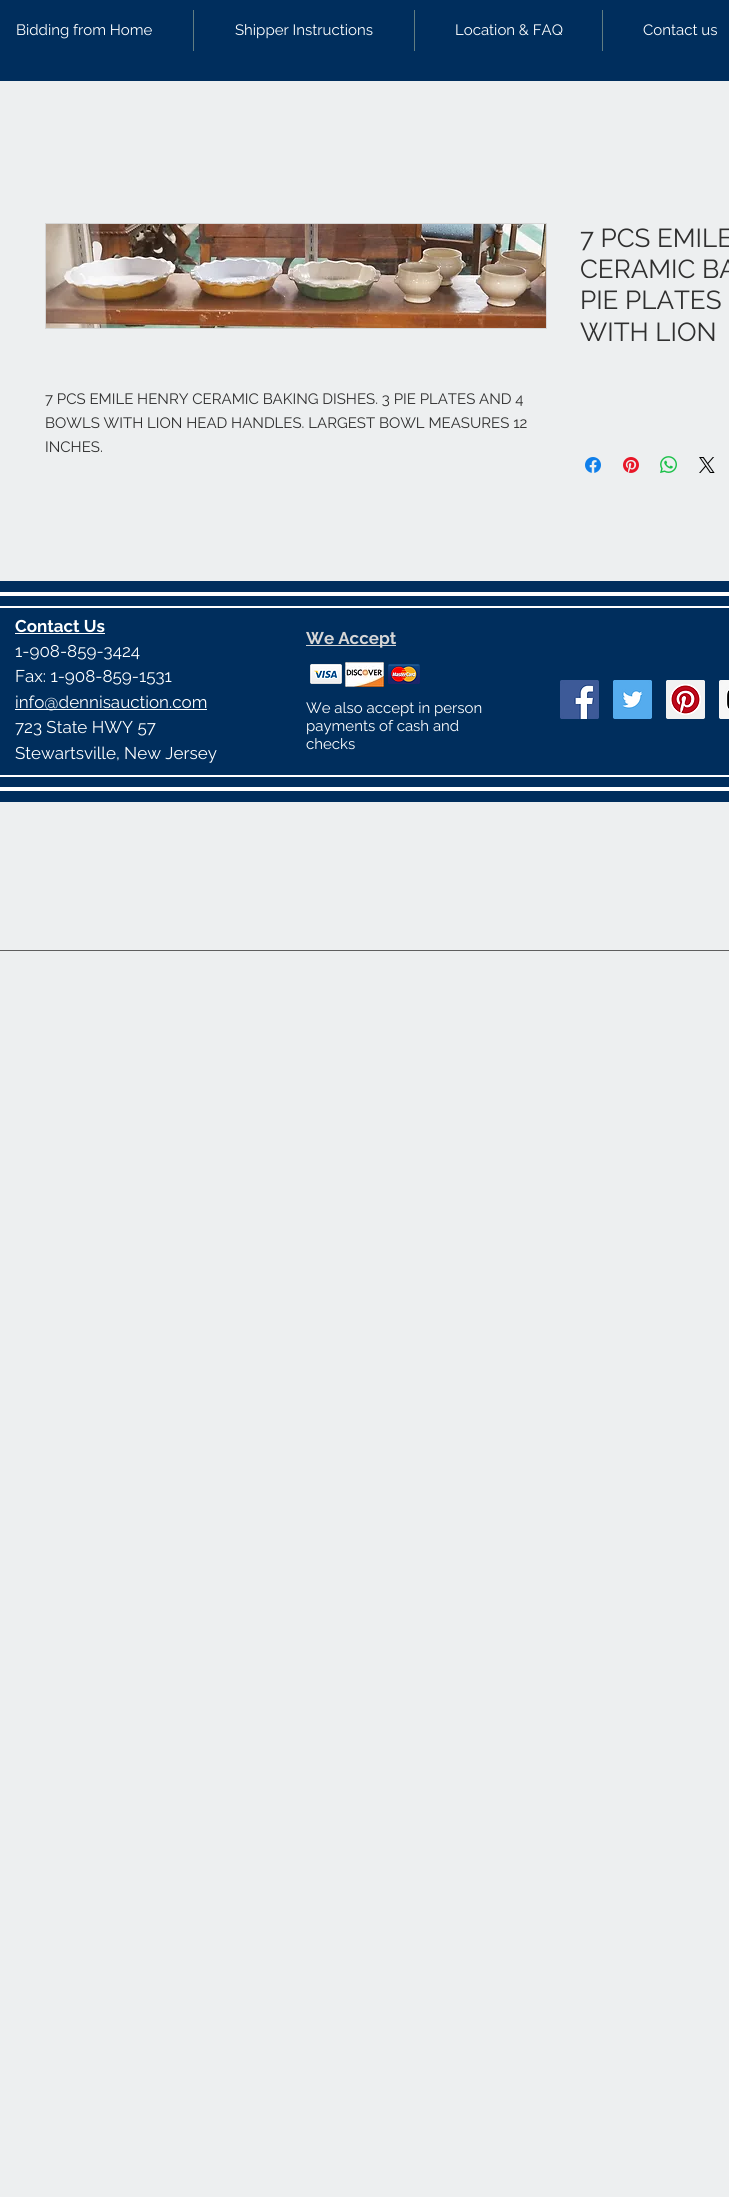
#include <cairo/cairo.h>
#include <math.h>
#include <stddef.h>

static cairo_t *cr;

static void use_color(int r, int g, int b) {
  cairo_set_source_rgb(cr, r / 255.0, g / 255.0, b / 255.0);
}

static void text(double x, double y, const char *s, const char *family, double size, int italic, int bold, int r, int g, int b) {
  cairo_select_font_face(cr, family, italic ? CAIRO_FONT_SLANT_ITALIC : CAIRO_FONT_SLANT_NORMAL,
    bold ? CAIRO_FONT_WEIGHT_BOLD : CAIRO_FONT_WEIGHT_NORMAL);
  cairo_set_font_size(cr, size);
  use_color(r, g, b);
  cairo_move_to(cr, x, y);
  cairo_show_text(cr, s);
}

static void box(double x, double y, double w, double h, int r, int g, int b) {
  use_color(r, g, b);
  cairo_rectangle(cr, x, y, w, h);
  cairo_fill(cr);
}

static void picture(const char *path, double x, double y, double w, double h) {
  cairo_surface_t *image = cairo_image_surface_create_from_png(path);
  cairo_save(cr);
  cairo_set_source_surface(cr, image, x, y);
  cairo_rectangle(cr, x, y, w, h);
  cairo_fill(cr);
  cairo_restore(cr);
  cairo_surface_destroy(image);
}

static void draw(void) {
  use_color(237, 239, 240);
  cairo_paint(cr);
  box(0, 0, 729, 81, 0, 46, 93);
  box(193, 10, 1, 41, 96, 125, 130);
  box(414, 10, 1, 41, 96, 125, 130);
  box(602, 10, 1, 41, 96, 125, 130);
  picture("img_01.png", 585, 457, 16, 16);
  picture("img_02.png", 623, 457, 16, 16);
  picture("img_03.png", 660, 456, 17, 17);
  picture("img_04.png", 699, 457, 16, 16);
  cairo_rectangle(cr, 45.5, 223.5, 501, 105);
  use_color(214, 214, 214);
  cairo_set_line_width(cr, 1);
  cairo_stroke(cr);
  picture("img_05.png", 46, 224, 500, 104);
  box(0, 581, 729, 221, 0, 46, 93);
  box(0, 592, 729, 4, 255, 255, 255);
  box(0, 787, 729, 4, 255, 255, 255);
  box(0, 606, 729, 2, 255, 255, 255);
  box(0, 775, 729, 2, 255, 255, 255);
  box(15, 633, 90, 1, 255, 255, 255);
  box(15, 709, 192, 1, 255, 255, 255);
  box(306, 645, 90, 1, 214, 214, 214);
  picture("img_06.png", 310, 664, 32, 20);
  picture("img_07.png", 345, 662, 39, 25);
  picture("img_08.png", 388, 664, 32, 20);
  picture("img_09.png", 560, 680, 39, 39);
  picture("img_10.png", 613, 680, 39, 39);
  picture("img_11.png", 666, 680, 39, 39);
  picture("img_12.png", 719, 680, 10, 39);
  box(0, 950, 729, 1, 94, 94, 94);
  text(16, 35, "Bidding from Home", "Raleway", 15, 0, 0, 255, 255, 255);
  text(235, 35, "Shipper Instructions", "Raleway", 15, 0, 0, 255, 255, 255);
  text(455, 35, "Location & FAQ", "Raleway", 15, 0, 0, 255, 255, 255);
  text(643, 35, "Contact us", "Raleway", 15, 0, 0, 255, 255, 255);
  text(580, 247, "7 PCS EMILE", "Raleway", 26, 0, 0, 47, 47, 47);
  text(580, 278, "CERAMIC BA", "Raleway", 26, 0, 0, 47, 47, 47);
  text(580, 309, "PIE PLATES", "Raleway", 26, 0, 0, 47, 47, 47);
  text(580, 341, "WITH LION", "Raleway", 26, 0, 0, 47, 47, 47);
  text(45, 404, "7 PCS EMILE HENRY CERAMIC BAKING DISHES. 3 PIE PLATES AND 4", "Raleway", 15, 0, 0, 47, 47, 47);
  text(45, 428, "BOWLS WITH LION HEAD HANDLES. LARGEST BOWL MEASURES 12", "Raleway", 15, 0, 0, 47, 47, 47);
  text(45, 452, "INCHES.", "Raleway", 15, 0, 0, 47, 47, 47);
  text(15, 632, "Contact Us", "Raleway", 17, 0, 1, 255, 255, 255);
  text(15, 657, "1-908-859-3424", "Raleway", 17, 0, 0, 255, 255, 255);
  text(15, 682, "Fax: 1-908-859-1531", "Raleway", 17, 0, 0, 255, 255, 255);
  text(15, 708, "info@dennisauction.com", "Raleway", 17, 0, 0, 255, 255, 255);
  text(15, 733, "723 State HWY 57", "Raleway", 17, 0, 0, 255, 255, 255);
  text(15, 759, "Stewartsville, New Jersey", "Raleway", 17, 0, 0, 255, 255, 255);
  text(306, 644, "We Accept", "Raleway", 17, 0, 1, 214, 214, 214);
  text(306, 713, "We also accept in person", "Raleway", 15, 0, 0, 255, 255, 255);
  text(306, 731, "payments of cash and", "Raleway", 15, 0, 0, 255, 255, 255);
  text(306, 749, "checks", "Raleway", 15, 0, 0, 255, 255, 255);
}

int main(void) {
  cairo_surface_t *surface = cairo_image_surface_create(CAIRO_FORMAT_RGB24, 729, 2197);
  cr = cairo_create(surface);
  cairo_font_options_t *options = cairo_font_options_create();
  cairo_font_options_set_hint_metrics(options, CAIRO_HINT_METRICS_OFF);
  cairo_font_options_set_hint_style(options, CAIRO_HINT_STYLE_NONE);
  cairo_set_font_options(cr, options);
  cairo_set_miter_limit(cr, 4);
  draw();
  cairo_surface_write_to_png(surface, "out.png");
  cairo_font_options_destroy(options);
  cairo_destroy(cr);
  cairo_surface_destroy(surface);
  return 0;
}
